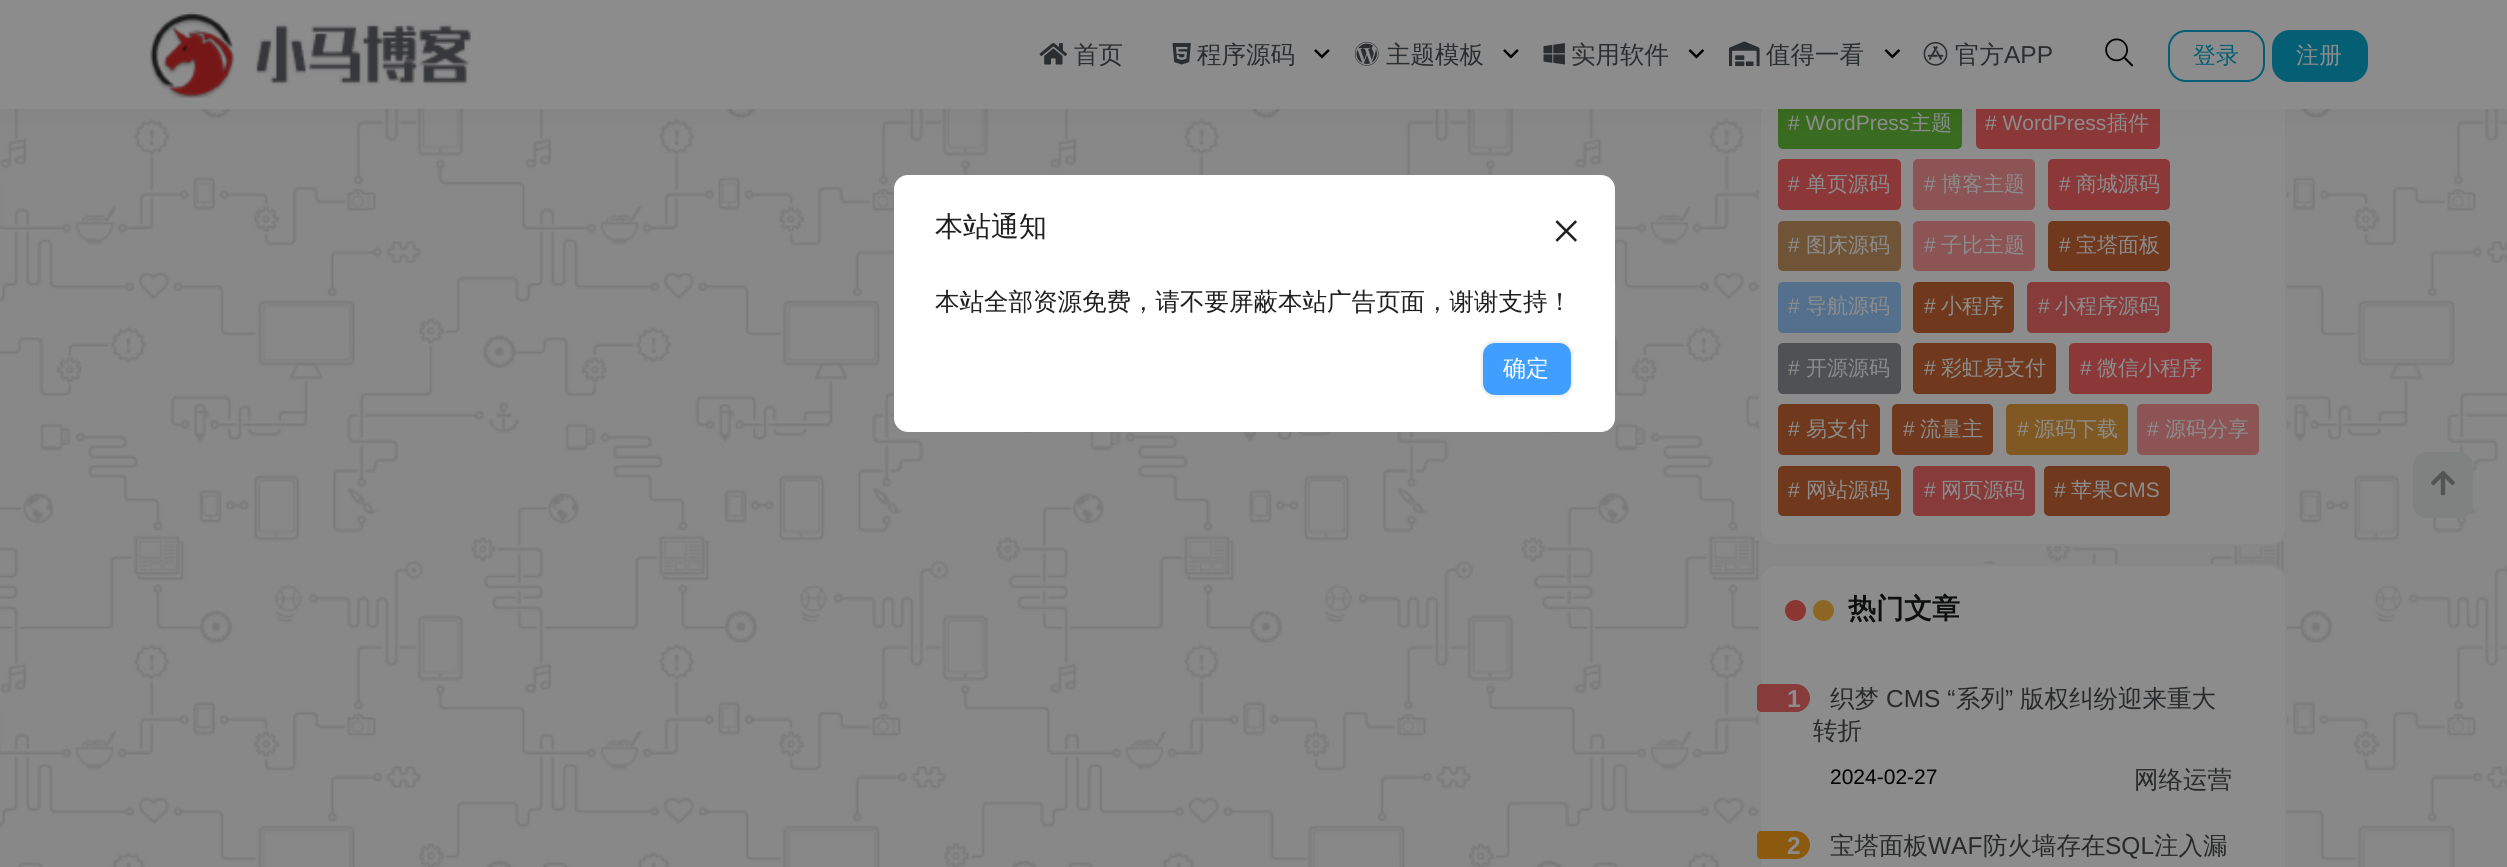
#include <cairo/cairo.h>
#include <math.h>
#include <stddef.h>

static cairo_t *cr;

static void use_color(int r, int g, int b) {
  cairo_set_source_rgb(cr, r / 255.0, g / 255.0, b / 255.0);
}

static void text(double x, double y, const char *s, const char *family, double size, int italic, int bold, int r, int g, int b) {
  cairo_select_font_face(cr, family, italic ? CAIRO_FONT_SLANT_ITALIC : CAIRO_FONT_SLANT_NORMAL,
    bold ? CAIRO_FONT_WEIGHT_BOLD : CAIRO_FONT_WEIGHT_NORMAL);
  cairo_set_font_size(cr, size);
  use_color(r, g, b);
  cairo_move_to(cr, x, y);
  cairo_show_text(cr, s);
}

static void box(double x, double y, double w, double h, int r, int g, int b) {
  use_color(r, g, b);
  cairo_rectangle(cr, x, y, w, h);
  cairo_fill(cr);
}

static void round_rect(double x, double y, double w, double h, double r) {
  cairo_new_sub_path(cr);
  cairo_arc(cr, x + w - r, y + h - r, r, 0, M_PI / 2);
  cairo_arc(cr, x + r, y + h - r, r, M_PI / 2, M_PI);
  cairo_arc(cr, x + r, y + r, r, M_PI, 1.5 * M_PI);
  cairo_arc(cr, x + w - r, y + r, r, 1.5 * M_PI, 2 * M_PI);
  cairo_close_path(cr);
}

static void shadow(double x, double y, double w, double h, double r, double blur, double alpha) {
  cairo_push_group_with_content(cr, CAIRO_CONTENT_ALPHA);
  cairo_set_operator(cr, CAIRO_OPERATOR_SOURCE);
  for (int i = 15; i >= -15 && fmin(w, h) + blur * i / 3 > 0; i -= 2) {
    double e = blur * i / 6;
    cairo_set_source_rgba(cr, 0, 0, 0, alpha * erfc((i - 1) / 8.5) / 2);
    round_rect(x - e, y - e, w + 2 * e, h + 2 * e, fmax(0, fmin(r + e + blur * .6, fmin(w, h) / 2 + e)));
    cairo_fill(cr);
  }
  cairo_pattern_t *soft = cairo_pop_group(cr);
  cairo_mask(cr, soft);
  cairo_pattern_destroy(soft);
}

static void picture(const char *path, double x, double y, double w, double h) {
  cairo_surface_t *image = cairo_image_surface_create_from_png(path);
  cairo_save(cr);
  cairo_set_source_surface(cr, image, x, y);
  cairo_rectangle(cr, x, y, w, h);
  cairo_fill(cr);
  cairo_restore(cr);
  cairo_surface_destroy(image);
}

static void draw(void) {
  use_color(255, 255, 255);
  cairo_paint(cr);
  picture("img_01.png", 0, 109, 2507, 758);
  use_color(140, 140, 140);
  round_rect(1760, -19, 526, 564, 17);
  cairo_fill_preserve(cr);
  use_color(135, 135, 136);
  cairo_stroke(cr);
  use_color(57, 107, 32);
  round_rect(1778, 98, 184, 51, 5);
  cairo_fill(cr);
  use_color(140, 56, 56);
  round_rect(1976, 98, 184, 51, 5);
  cairo_fill(cr);
  round_rect(1778, 159, 123, 51, 5);
  cairo_fill(cr);
  use_color(140, 84, 84);
  round_rect(1913, 159, 122, 51, 5);
  cairo_fill(cr);
  use_color(140, 56, 56);
  round_rect(2048, 159, 122, 51, 5);
  cairo_fill(cr);
  use_color(0, 0, 0);
  shadow(0, 0, 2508, 109, 0, 17.5, 0.05);
  box(0, 0, 2507, 109, 140, 140, 140);
  picture("img_02.png", 149, 12, 324, 86);
  picture("img_03.png", 1039, 43, 28, 22);
  picture("img_04.png", 1172, 43, 19, 22);
  picture("img_05.png", 1314, 49, 16, 10);
  picture("img_06.png", 1354, 41, 25, 25);
  picture("img_05.png", 1503, 49, 16, 10);
  picture("img_07.png", 1543, 43, 22, 22);
  picture("img_08.png", 1688, 49, 16, 10);
  picture("img_09.png", 1729, 41, 31, 26);
  picture("img_08.png", 1884, 49, 16, 10);
  picture("img_10.png", 1923, 41, 25, 25);
  picture("img_11.png", 2105, 38, 29, 29);
  round_rect(2169, 31, 95, 50, 17);
  use_color(4, 94, 116);
  cairo_stroke(cr);
  round_rect(2273, 31, 94, 50, 17);
  cairo_fill_preserve(cr);
  cairo_stroke(cr);
  use_color(112, 84, 56);
  round_rect(1778, 221, 123, 50, 5);
  cairo_fill(cr);
  use_color(140, 84, 84);
  round_rect(1913, 221, 122, 50, 5);
  cairo_fill(cr);
  use_color(112, 56, 28);
  round_rect(2048, 221, 122, 50, 5);
  cairo_fill(cr);
  use_color(84, 112, 140);
  round_rect(1778, 282, 123, 51, 5);
  cairo_fill(cr);
  use_color(112, 56, 28);
  round_rect(1913, 282, 101, 51, 5);
  cairo_fill(cr);
  use_color(135, 59, 59);
  round_rect(2027, 282, 143, 51, 5);
  cairo_fill(cr);
  use_color(79, 81, 84);
  round_rect(1778, 343, 123, 51, 5);
  cairo_fill(cr);
  use_color(112, 56, 28);
  round_rect(1913, 343, 143, 51, 5);
  cairo_fill(cr);
  use_color(140, 56, 56);
  round_rect(2069, 343, 143, 51, 5);
  cairo_fill(cr);
  use_color(112, 56, 28);
  round_rect(1778, 404, 102, 51, 5);
  cairo_fill(cr);
  round_rect(1892, 404, 101, 51, 5);
  cairo_fill(cr);
  use_color(127, 89, 33);
  round_rect(2006, 404, 122, 51, 5);
  cairo_fill(cr);
  use_color(140, 84, 84);
  round_rect(2137, 404, 122, 51, 5);
  cairo_fill(cr);
  use_color(112, 56, 28);
  round_rect(1778, 466, 123, 50, 5);
  cairo_fill(cr);
  use_color(135, 59, 59);
  round_rect(1913, 466, 122, 50, 5);
  cairo_fill(cr);
  use_color(112, 56, 28);
  round_rect(2044, 466, 126, 50, 5);
  cairo_fill(cr);
  use_color(140, 140, 140);
  round_rect(1760, 565, 526, 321, 17);
  cairo_fill_preserve(cr);
  use_color(135, 135, 136);
  cairo_stroke(cr);
  use_color(139, 54, 51);
  cairo_arc(cr, 1795.5, 610.5, 10.5, 0, 2 * M_PI);
  cairo_fill(cr);
  use_color(139, 103, 35);
  cairo_arc(cr, 1823.5, 610.5, 10.5, 0, 2 * M_PI);
  cairo_fill(cr);
  use_color(135, 59, 59);
  cairo_new_path(cr);
  cairo_move_to(cr, 1761, 684);
  cairo_line_to(cr, 1796, 684);
  cairo_curve_to(cr, 1803.5, 684, 1810, 690.5, 1810, 698);
  cairo_curve_to(cr, 1810, 705.5, 1803.5, 712, 1796, 712);
  cairo_line_to(cr, 1761, 712);
  cairo_curve_to(cr, 1759, 712, 1757, 710, 1757, 708);
  cairo_line_to(cr, 1757, 688);
  cairo_curve_to(cr, 1757, 686, 1759, 684, 1761, 684);
  cairo_close_path(cr);
  cairo_fill(cr);
  use_color(140, 90, 15);
  cairo_new_path(cr);
  cairo_move_to(cr, 1761, 831);
  cairo_line_to(cr, 1796, 831);
  cairo_curve_to(cr, 1803.5, 831, 1810, 837.5, 1810, 845);
  cairo_curve_to(cr, 1810, 852.5, 1803.5, 859, 1796, 859);
  cairo_line_to(cr, 1761, 859);
  cairo_curve_to(cr, 1759, 859, 1757, 857, 1757, 855);
  cairo_line_to(cr, 1757, 835);
  cairo_curve_to(cr, 1757, 833, 1759, 831, 1761, 831);
  cairo_close_path(cr);
  cairo_fill(cr);
  use_color(128, 129, 129);
  round_rect(2413, 452, 60, 66, 14);
  cairo_fill(cr);
  picture("img_12.png", 2431, 470, 24, 26);
  cairo_save(cr);
  cairo_rectangle(cr, 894, 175, 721, 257);
  cairo_clip(cr);
  use_color(0, 0, 0);
  shadow(901, 187, 707, 244, 7, 5, 0.12);
  cairo_restore(cr);
  use_color(255, 255, 255);
  round_rect(894, 175, 721, 257, 14);
  cairo_fill(cr);
  picture("img_13.png", 1555, 220, 22, 22);
  use_color(240, 240, 240);
  shadow(1481, 341, 92, 56, 14, 1, 1);
  use_color(64, 158, 255);
  round_rect(1482, 342, 90, 54, 13);
  cairo_fill_preserve(cr);
  use_color(240, 240, 240);
  cairo_stroke(cr);
  text(1074, 63, "首页", "WenQuanYi Zen Hei Medium", 24.5, 0, 0, 43, 46, 48);
  text(1197, 63, "程序源码", "WenQuanYi Zen Hei Medium", 24.5, 0, 0, 43, 46, 48);
  text(1386, 63, "主题模板", "WenQuanYi Zen Hei Medium", 24.5, 0, 0, 43, 46, 48);
  text(1571, 63, "实用软件", "WenQuanYi Zen Hei Medium", 24.5, 0, 0, 43, 46, 48);
  text(1766, 63, "值得一看", "WenQuanYi Zen Hei Medium", 24.5, 0, 0, 43, 46, 48);
  text(1955, 63, "官方", "WenQuanYi Zen Hei Medium", 24.5, 0, 0, 43, 46, 48);
  text(2004, 63, "APP", "Liberation Sans", 24.5, 0, 0, 43, 46, 48);
  text(2193, 63, "登录", "WenQuanYi Zen Hei Medium", 23, 0, 0, 4, 94, 116);
  text(2296, 63, "注册", "WenQuanYi Zen Hei Medium", 23, 0, 0, 140, 140, 140);
  text(1788, 130, "# WordPress", "Liberation Sans", 21, 0, 0, 140, 140, 140);
  text(1910, 130, "主题", "WenQuanYi Zen Hei Medium", 21, 0, 0, 140, 140, 140);
  text(1985, 130, "# WordPress", "Liberation Sans", 21, 0, 0, 140, 140, 140);
  text(2107, 130, "插件", "WenQuanYi Zen Hei Medium", 21, 0, 0, 140, 140, 140);
  text(1788, 191, "#", "Liberation Sans", 21, 0, 0, 140, 140, 140);
  text(1806, 191, "单页源码", "WenQuanYi Zen Hei Medium", 21, 0, 0, 140, 140, 140);
  text(1924, 191, "#", "Liberation Sans", 21, 0, 0, 140, 140, 140);
  text(1941, 191, "博客主题", "WenQuanYi Zen Hei Medium", 21, 0, 0, 140, 140, 140);
  text(2059, 191, "#", "Liberation Sans", 21, 0, 0, 140, 140, 140);
  text(2076, 191, "商城源码", "WenQuanYi Zen Hei Medium", 21, 0, 0, 140, 140, 140);
  text(1788, 252, "#", "Liberation Sans", 21, 0, 0, 140, 140, 140);
  text(1806, 252, "图床源码", "WenQuanYi Zen Hei Medium", 21, 0, 0, 140, 140, 140);
  text(1924, 252, "#", "Liberation Sans", 21, 0, 0, 140, 140, 140);
  text(1941, 252, "子比主题", "WenQuanYi Zen Hei Medium", 21, 0, 0, 140, 140, 140);
  text(2059, 252, "#", "Liberation Sans", 21, 0, 0, 140, 140, 140);
  text(2076, 252, "宝塔面板", "WenQuanYi Zen Hei Medium", 21, 0, 0, 140, 140, 140);
  text(1788, 313, "#", "Liberation Sans", 21, 0, 0, 140, 140, 140);
  text(1806, 313, "导航源码", "WenQuanYi Zen Hei Medium", 21, 0, 0, 140, 140, 140);
  text(1924, 313, "#", "Liberation Sans", 21, 0, 0, 140, 140, 140);
  text(1941, 313, "小程序", "WenQuanYi Zen Hei Medium", 21, 0, 0, 140, 140, 140);
  text(2038, 313, "#", "Liberation Sans", 21, 0, 0, 140, 140, 140);
  text(2055, 313, "小程序源码", "WenQuanYi Zen Hei Medium", 21, 0, 0, 140, 140, 140);
  text(1788, 375, "#", "Liberation Sans", 21, 0, 0, 140, 140, 140);
  text(1806, 375, "开源源码", "WenQuanYi Zen Hei Medium", 21, 0, 0, 140, 140, 140);
  text(1924, 375, "#", "Liberation Sans", 21, 0, 0, 140, 140, 140);
  text(1941, 375, "彩虹易支付", "WenQuanYi Zen Hei Medium", 21, 0, 0, 140, 140, 140);
  text(2080, 375, "#", "Liberation Sans", 21, 0, 0, 140, 140, 140);
  text(2097, 375, "微信小程序", "WenQuanYi Zen Hei Medium", 21, 0, 0, 140, 140, 140);
  text(1788, 436, "#", "Liberation Sans", 21, 0, 0, 140, 140, 140);
  text(1806, 436, "易支付", "WenQuanYi Zen Hei Medium", 21, 0, 0, 140, 140, 140);
  text(1903, 436, "#", "Liberation Sans", 21, 0, 0, 140, 140, 140);
  text(1920, 436, "流量主", "WenQuanYi Zen Hei Medium", 21, 0, 0, 140, 140, 140);
  text(2017, 436, "#", "Liberation Sans", 21, 0, 0, 140, 140, 140);
  text(2034, 436, "源码下载", "WenQuanYi Zen Hei Medium", 21, 0, 0, 140, 140, 140);
  text(2147, 436, "#", "Liberation Sans", 21, 0, 0, 140, 140, 140);
  text(2165, 436, "源码分享", "WenQuanYi Zen Hei Medium", 21, 0, 0, 140, 140, 140);
  text(1788, 497, "#", "Liberation Sans", 21, 0, 0, 140, 140, 140);
  text(1806, 497, "网站源码", "WenQuanYi Zen Hei Medium", 21, 0, 0, 140, 140, 140);
  text(1924, 497, "#", "Liberation Sans", 21, 0, 0, 140, 140, 140);
  text(1941, 497, "网页源码", "WenQuanYi Zen Hei Medium", 21, 0, 0, 140, 140, 140);
  text(2054, 497, "#", "Liberation Sans", 21, 0, 0, 140, 140, 140);
  text(2071, 497, "苹果", "WenQuanYi Zen Hei Medium", 21, 0, 0, 140, 140, 140);
  text(2113, 497, "CMS", "Liberation Sans", 21, 0, 0, 140, 140, 140);
  text(1848, 618, "热门文章", "WenQuanYi Zen Hei", 28, 0, 1, 13, 14, 14);
  text(1787, 707, "1", "Liberation Sans", 24.5, 0, 1, 140, 140, 140);
  text(1830, 707, "织梦", "WenQuanYi Zen Hei Medium", 24.5, 0, 0, 40, 41, 42);
  text(1886, 707, "CMS “", "Liberation Sans", 24.5, 0, 0, 40, 41, 42);
  text(1956, 707, "系列", "WenQuanYi Zen Hei Medium", 24.5, 0, 0, 40, 41, 42);
  text(2005, 707, "”", "Liberation Sans", 24.5, 0, 0, 40, 41, 42);
  text(2020, 707, "版权纠纷迎来重大", "WenQuanYi Zen Hei Medium", 24.5, 0, 0, 40, 41, 42);
  text(1813, 739, "转折", "WenQuanYi Zen Hei Medium", 24.5, 0, 0, 40, 41, 42);
  text(1830, 784, "2024-02-27", "Liberation Sans", 21, 0, 0, 0, 0, 0);
  text(2134, 788, "网络运营", "WenQuanYi Zen Hei Medium", 24.5, 0, 0, 40, 41, 42);
  text(1787, 854, "2", "Liberation Sans", 24.5, 0, 1, 140, 140, 140);
  text(1830, 854, "宝塔面板", "WenQuanYi Zen Hei Medium", 24.5, 0, 0, 40, 41, 42);
  text(1928, 854, "WAF", "Liberation Sans", 24.5, 0, 0, 40, 41, 42);
  text(1983, 854, "防火墙存在", "WenQuanYi Zen Hei Medium", 24.5, 0, 0, 40, 41, 42);
  text(2105, 854, "SQL", "Liberation Sans", 24.5, 0, 0, 40, 41, 42);
  text(2154, 854, "注入漏", "WenQuanYi Zen Hei Medium", 24.5, 0, 0, 40, 41, 42);
  text(935, 236, "本站通知", "WenQuanYi Zen Hei Medium", 28, 0, 0, 31, 31, 31);
  text(935, 310, "本站全部资源免费，请不要屏蔽本站广告页面，谢谢支持！", "WenQuanYi Zen Hei Medium", 24.5, 0, 0, 31, 31, 31);
  text(1503, 376, "确定", "WenQuanYi Zen Hei Medium", 23, 0, 0, 255, 255, 255);
}

int main(void) {
  cairo_surface_t *surface = cairo_image_surface_create(CAIRO_FORMAT_RGB24, 2507, 867);
  cr = cairo_create(surface);
  cairo_font_options_t *options = cairo_font_options_create();
  cairo_font_options_set_hint_metrics(options, CAIRO_HINT_METRICS_OFF);
  cairo_font_options_set_hint_style(options, CAIRO_HINT_STYLE_NONE);
  cairo_set_font_options(cr, options);
  cairo_set_miter_limit(cr, 4);
  draw();
  cairo_surface_write_to_png(surface, "out.png");
  cairo_font_options_destroy(options);
  cairo_destroy(cr);
  cairo_surface_destroy(surface);
  return 0;
}
